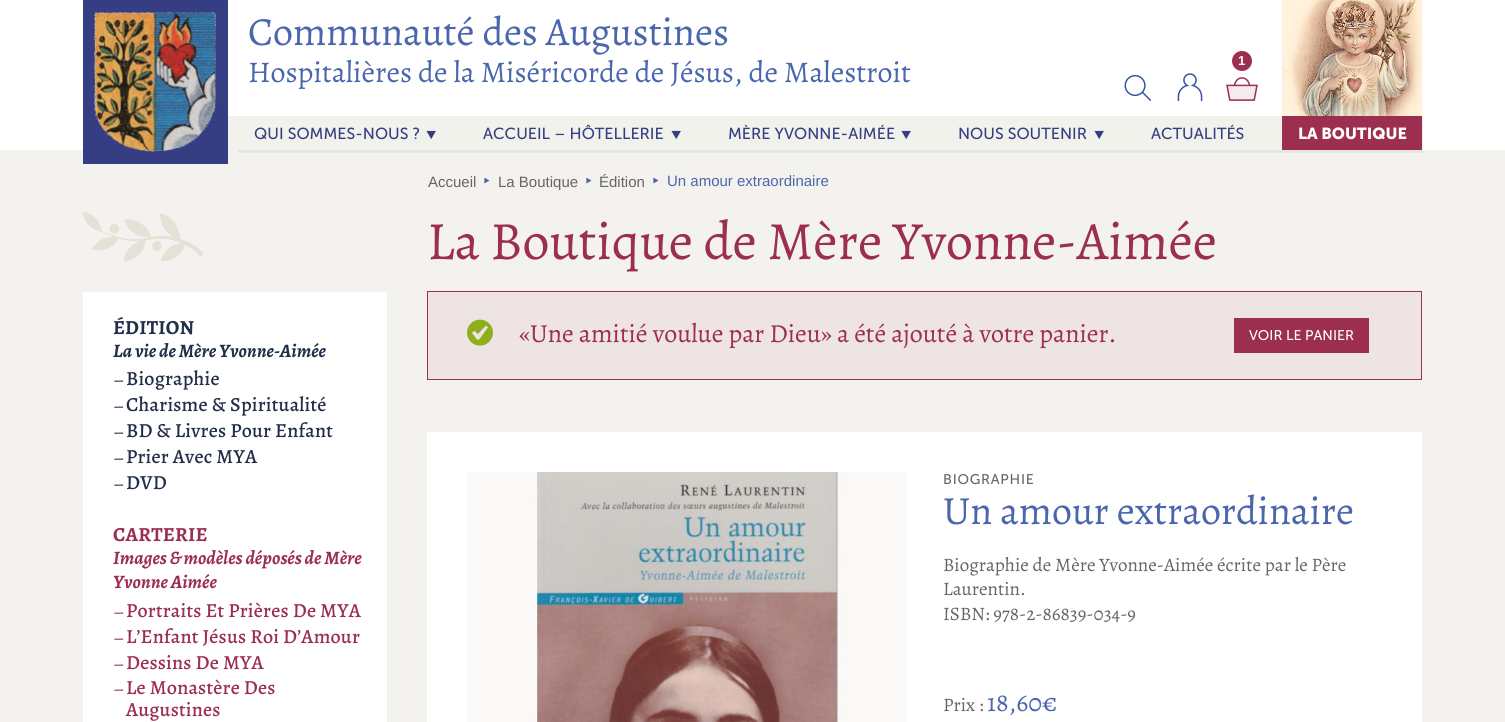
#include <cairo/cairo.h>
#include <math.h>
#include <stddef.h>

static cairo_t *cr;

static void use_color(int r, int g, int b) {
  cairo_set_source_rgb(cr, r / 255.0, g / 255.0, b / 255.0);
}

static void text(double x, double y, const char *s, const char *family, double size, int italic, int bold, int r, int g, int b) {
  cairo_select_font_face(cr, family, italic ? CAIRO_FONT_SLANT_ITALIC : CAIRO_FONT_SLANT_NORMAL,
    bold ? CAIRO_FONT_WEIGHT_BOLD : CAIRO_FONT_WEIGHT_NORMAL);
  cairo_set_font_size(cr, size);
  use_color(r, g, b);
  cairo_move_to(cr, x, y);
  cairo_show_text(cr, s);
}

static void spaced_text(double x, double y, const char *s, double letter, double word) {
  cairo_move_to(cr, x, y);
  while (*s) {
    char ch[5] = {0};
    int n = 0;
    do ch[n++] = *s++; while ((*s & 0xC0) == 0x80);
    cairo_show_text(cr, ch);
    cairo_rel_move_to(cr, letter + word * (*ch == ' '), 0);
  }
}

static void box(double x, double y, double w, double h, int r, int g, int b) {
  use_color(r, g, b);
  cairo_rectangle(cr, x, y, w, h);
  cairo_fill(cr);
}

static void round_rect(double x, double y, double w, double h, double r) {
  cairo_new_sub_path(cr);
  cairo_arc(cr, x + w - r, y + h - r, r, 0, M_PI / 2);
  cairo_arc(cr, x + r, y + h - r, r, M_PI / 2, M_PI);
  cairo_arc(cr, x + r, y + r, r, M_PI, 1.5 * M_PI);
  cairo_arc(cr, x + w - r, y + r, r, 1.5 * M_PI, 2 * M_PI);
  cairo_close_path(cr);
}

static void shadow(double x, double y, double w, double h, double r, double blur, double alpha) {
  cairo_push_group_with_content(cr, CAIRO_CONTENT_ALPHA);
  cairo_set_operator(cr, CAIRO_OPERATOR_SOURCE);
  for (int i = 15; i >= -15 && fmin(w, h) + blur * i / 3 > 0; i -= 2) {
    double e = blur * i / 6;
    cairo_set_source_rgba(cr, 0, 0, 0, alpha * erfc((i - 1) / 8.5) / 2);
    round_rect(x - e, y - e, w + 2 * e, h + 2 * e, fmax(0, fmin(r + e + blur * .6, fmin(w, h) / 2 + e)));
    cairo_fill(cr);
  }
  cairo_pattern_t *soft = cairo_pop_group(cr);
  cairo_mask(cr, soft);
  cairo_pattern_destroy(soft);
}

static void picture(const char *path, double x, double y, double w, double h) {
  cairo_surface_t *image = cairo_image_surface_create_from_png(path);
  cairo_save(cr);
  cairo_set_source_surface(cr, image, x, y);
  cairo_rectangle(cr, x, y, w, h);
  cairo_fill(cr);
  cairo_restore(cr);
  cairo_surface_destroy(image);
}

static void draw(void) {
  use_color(244, 242, 238);
  cairo_paint(cr);
  box(0, 0, 1505, 150, 255, 255, 255);
  box(83, 0, 145, 164, 53, 62, 130);
  picture("img_01.png", 94, 12, 123, 140);
  box(228, 116, 1195, 34, 242, 242, 237);
  use_color(156, 47, 79);
  cairo_arc(cr, 1242, 61, 10, 0, 2 * M_PI);
  cairo_fill(cr);
  picture("img_02.png", 1226, 77, 32, 24);
  picture("img_03.png", 1177, 73, 26, 29);
  picture("img_04.png", 1124, 74, 28, 27);
  cairo_save(cr);
  cairo_rectangle(cr, 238, 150, 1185, 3);
  cairo_clip(cr);
  use_color(0, 0, 0);
  shadow(238, 119, 1185, 34, 0, 0.5, 0.06);
  cairo_restore(cr);
  box(1282, 116, 140, 34, 156, 47, 79);
  picture("img_05.png", 1282, 0, 140, 116);
  picture("img_06.png", 83, 212, 120, 49);
  box(83, 292, 304, 430, 255, 255, 255);
  use_color(238, 228, 227);
  cairo_rectangle(cr, 427.5, 291.5, 994, 88);
  cairo_fill_preserve(cr);
  use_color(156, 47, 79);
  cairo_set_line_width(cr, 1);
  cairo_stroke(cr);
  picture("img_07.png", 467, 319, 26, 27);
  box(1234, 318, 135, 35, 156, 47, 79);
  box(427, 432, 995, 290, 255, 255, 255);
  picture("img_08.png", 467, 472, 440, 250);
  text(248, 45, "Communauté des Augustines", "Alegreya", 40, 0, 0, 74, 102, 172);
  text(248, 82, "Hospitalières de la Miséricorde de Jésus, de Malestroit", "Alegreya", 30, 0, 0, 74, 102, 172);
  text(1238, 65, "1", "Liberation Sans", 13, 0, 1, 255, 255, 255);
  text(254, 139, "QUI SOMMES-NOUS ?", "Museo Sans", 16, 0, 0, 53, 62, 130);
  cairo_save(cr);
  cairo_translate(cr, 420, 129);
  cairo_rotate(cr, 90 * M_PI / 180);
  text(0, 0, "‣", "Noto Sans Medium", 30, 0, 0, 53, 62, 130);
  cairo_restore(cr);
  text(483, 139, "ACCUEIL – HÔTELLERIE", "Museo Sans", 16, 0, 0, 53, 62, 130);
  cairo_save(cr);
  cairo_translate(cr, 665, 129);
  cairo_rotate(cr, 90 * M_PI / 180);
  text(0, 0, "‣", "Noto Sans Medium", 30, 0, 0, 53, 62, 130);
  cairo_restore(cr);
  text(728, 139, "MÈRE YVONNE-AIMÉE", "Museo Sans", 16, 0, 0, 53, 62, 130);
  cairo_save(cr);
  cairo_translate(cr, 895, 129);
  cairo_rotate(cr, 90 * M_PI / 180);
  text(0, 0, "‣", "Noto Sans Medium", 30, 0, 0, 53, 62, 130);
  cairo_restore(cr);
  text(958, 139, "NOUS SOUTENIR", "Museo Sans", 16, 0, 0, 53, 62, 130);
  cairo_save(cr);
  cairo_translate(cr, 1088, 129);
  cairo_rotate(cr, 90 * M_PI / 180);
  text(0, 0, "‣", "Noto Sans Medium", 30, 0, 0, 53, 62, 130);
  cairo_restore(cr);
  text(1151, 139, "ACTUALITÉS", "Museo Sans", 16, 0, 0, 53, 62, 130);
  text(1298, 139, "LA BOUTIQUE", "Museo Sans", 16, 0, 1, 255, 255, 255);
  text(428, 187, "Accueil", "Liberation Sans", 15, 0, 0, 102, 101, 98);
  text(483, 188, "‣", "Noto Sans", 20, 0, 0, 74, 102, 172);
  text(498, 187, "La Boutique", "Liberation Sans", 15, 0, 0, 102, 101, 98);
  text(585, 188, "‣", "Noto Sans", 20, 0, 0, 74, 102, 172);
  text(599, 187, "Édition", "Liberation Sans", 15, 0, 0, 102, 101, 98);
  text(652, 188, "‣", "Noto Sans", 20, 0, 0, 74, 102, 172);
  text(667, 186, "Un amour extraordinaire", "Liberation Sans", 15, 0, 0, 74, 102, 172);
  cairo_select_font_face(cr, "Alegreya", CAIRO_FONT_SLANT_NORMAL, CAIRO_FONT_WEIGHT_BOLD);
  cairo_set_font_size(cr, 20);
  use_color(34, 47, 74);
  spaced_text(113, 334, "ÉDITION", 0.2, 0);
  text(113, 357, "La vie de Mère Yvonne-Aimée", "Alegreya", 19, 1, 1, 34, 47, 74);
  text(113, 386, "–", "Alegreya", 19, 0, 0, 34, 47, 74);
  cairo_select_font_face(cr, "Alegreya Medium", CAIRO_FONT_SLANT_NORMAL, CAIRO_FONT_WEIGHT_NORMAL);
  cairo_set_font_size(cr, 20);
  spaced_text(126, 385, "Biographie", 0.2, 0);
  text(113, 412, "–", "Alegreya", 19, 0, 0, 34, 47, 74);
  cairo_select_font_face(cr, "Alegreya Medium", CAIRO_FONT_SLANT_NORMAL, CAIRO_FONT_WEIGHT_NORMAL);
  cairo_set_font_size(cr, 20);
  spaced_text(126, 411, "Charisme & Spiritualité", 0.2, 0);
  text(113, 438, "–", "Alegreya", 19, 0, 0, 34, 47, 74);
  cairo_select_font_face(cr, "Alegreya Medium", CAIRO_FONT_SLANT_NORMAL, CAIRO_FONT_WEIGHT_NORMAL);
  cairo_set_font_size(cr, 20);
  spaced_text(126, 437, "BD & Livres Pour Enfant", 0.2, 0);
  text(113, 464, "–", "Alegreya", 19, 0, 0, 34, 47, 74);
  cairo_select_font_face(cr, "Alegreya Medium", CAIRO_FONT_SLANT_NORMAL, CAIRO_FONT_WEIGHT_NORMAL);
  cairo_set_font_size(cr, 20);
  spaced_text(126, 463, "Prier Avec MYA", 0.2, 0);
  text(113, 490, "–", "Alegreya", 19, 0, 0, 34, 47, 74);
  cairo_select_font_face(cr, "Alegreya Medium", CAIRO_FONT_SLANT_NORMAL, CAIRO_FONT_WEIGHT_NORMAL);
  cairo_set_font_size(cr, 20);
  spaced_text(126, 489, "DVD", 0.2, 0);
  cairo_select_font_face(cr, "Alegreya", CAIRO_FONT_SLANT_NORMAL, CAIRO_FONT_WEIGHT_BOLD);
  use_color(156, 47, 79);
  spaced_text(113, 541, "CARTERIE", 0.2, 0);
  text(113, 564, "Images & modèles déposés de Mère", "Alegreya", 19, 1, 1, 156, 47, 79);
  text(113, 588, "Yvonne Aimée", "Alegreya", 19, 1, 1, 156, 47, 79);
  text(113, 618, "–", "Alegreya", 19, 0, 0, 156, 47, 79);
  cairo_select_font_face(cr, "Alegreya Medium", CAIRO_FONT_SLANT_NORMAL, CAIRO_FONT_WEIGHT_NORMAL);
  cairo_set_font_size(cr, 20);
  spaced_text(126, 617, "Portraits Et Prières De MYA", 0.2, 0);
  text(113, 644, "–", "Alegreya", 19, 0, 0, 156, 47, 79);
  cairo_select_font_face(cr, "Alegreya Medium", CAIRO_FONT_SLANT_NORMAL, CAIRO_FONT_WEIGHT_NORMAL);
  cairo_set_font_size(cr, 20);
  spaced_text(126, 643, "L’Enfant Jésus Roi D’Amour", 0.2, 0);
  text(113, 670, "–", "Alegreya", 19, 0, 0, 156, 47, 79);
  cairo_select_font_face(cr, "Alegreya Medium", CAIRO_FONT_SLANT_NORMAL, CAIRO_FONT_WEIGHT_NORMAL);
  cairo_set_font_size(cr, 20);
  spaced_text(126, 669, "Dessins De MYA", 0.2, 0);
  text(113, 695, "–", "Alegreya", 19, 0, 0, 156, 47, 79);
  cairo_select_font_face(cr, "Alegreya Medium", CAIRO_FONT_SLANT_NORMAL, CAIRO_FONT_WEIGHT_NORMAL);
  cairo_set_font_size(cr, 20);
  spaced_text(126, 694, "Le Monastère Des", 0.2, 0);
  spaced_text(126, 716, "Augustines", 0.2, 0);
  text(427, 259, "La Boutique de Mère Yvonne-Aimée", "Alegreya", 54, 0, 0, 156, 47, 79);
  text(519, 342, "«Une amitié voulue par Dieu» a été ajouté à votre panier.", "Alegreya", 26, 0, 0, 156, 47, 79);
  text(1249, 340, "VOIR LE PANIER", "Museo Sans", 14, 0, 0, 255, 255, 255);
  use_color(102, 101, 98);
  spaced_text(943, 484, "BIOGRAPHIE", 0.75, 0);
  text(943, 524, "Un amour extraordinaire", "Alegreya", 40, 0, 0, 74, 102, 172);
  text(943, 571, "Biographie de Mère Yvonne-Aimée écrite par le Père", "Alegreya", 19, 0, 0, 102, 101, 98);
  text(943, 595, "Laurentin.", "Alegreya", 19, 0, 0, 102, 101, 98);
  text(943, 620, "ISBN: 978-2-86839-034-9", "Alegreya", 19, 0, 0, 102, 101, 98);
  text(943, 711, "Prix :", "Alegreya", 19, 0, 0, 102, 101, 98);
  text(987, 711, "18,60€", "Alegreya", 26, 0, 0, 74, 102, 172);
}

int main(void) {
  cairo_surface_t *surface = cairo_image_surface_create(CAIRO_FORMAT_RGB24, 1505, 722);
  cr = cairo_create(surface);
  cairo_font_options_t *options = cairo_font_options_create();
  cairo_font_options_set_hint_metrics(options, CAIRO_HINT_METRICS_OFF);
  cairo_font_options_set_hint_style(options, CAIRO_HINT_STYLE_NONE);
  cairo_set_font_options(cr, options);
  cairo_set_miter_limit(cr, 4);
  draw();
  cairo_surface_write_to_png(surface, "out.png");
  cairo_font_options_destroy(options);
  cairo_destroy(cr);
  cairo_surface_destroy(surface);
  return 0;
}
